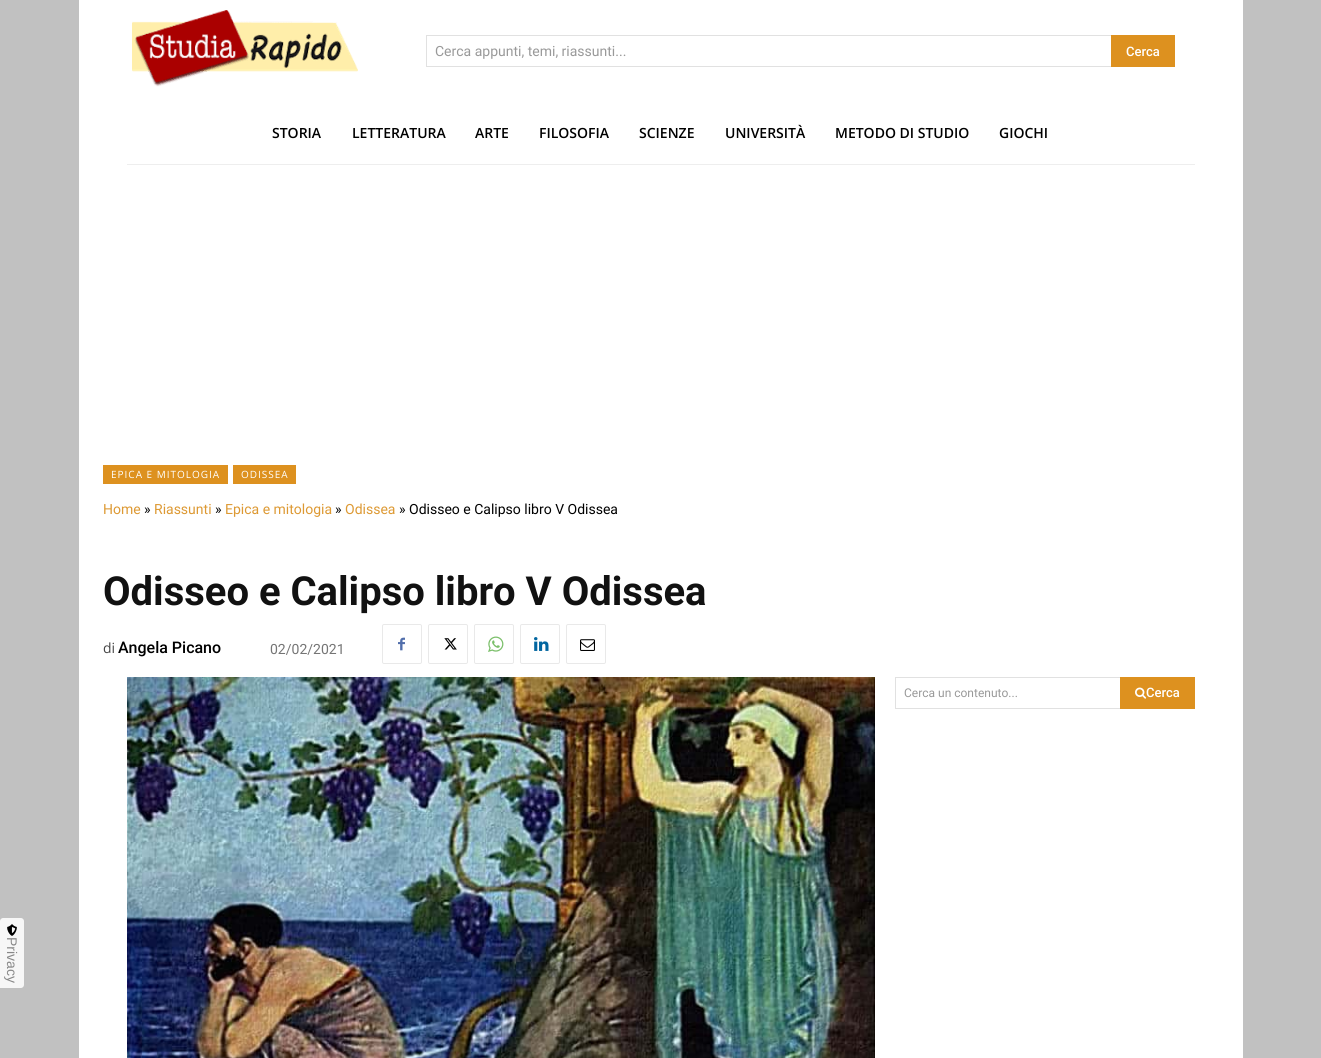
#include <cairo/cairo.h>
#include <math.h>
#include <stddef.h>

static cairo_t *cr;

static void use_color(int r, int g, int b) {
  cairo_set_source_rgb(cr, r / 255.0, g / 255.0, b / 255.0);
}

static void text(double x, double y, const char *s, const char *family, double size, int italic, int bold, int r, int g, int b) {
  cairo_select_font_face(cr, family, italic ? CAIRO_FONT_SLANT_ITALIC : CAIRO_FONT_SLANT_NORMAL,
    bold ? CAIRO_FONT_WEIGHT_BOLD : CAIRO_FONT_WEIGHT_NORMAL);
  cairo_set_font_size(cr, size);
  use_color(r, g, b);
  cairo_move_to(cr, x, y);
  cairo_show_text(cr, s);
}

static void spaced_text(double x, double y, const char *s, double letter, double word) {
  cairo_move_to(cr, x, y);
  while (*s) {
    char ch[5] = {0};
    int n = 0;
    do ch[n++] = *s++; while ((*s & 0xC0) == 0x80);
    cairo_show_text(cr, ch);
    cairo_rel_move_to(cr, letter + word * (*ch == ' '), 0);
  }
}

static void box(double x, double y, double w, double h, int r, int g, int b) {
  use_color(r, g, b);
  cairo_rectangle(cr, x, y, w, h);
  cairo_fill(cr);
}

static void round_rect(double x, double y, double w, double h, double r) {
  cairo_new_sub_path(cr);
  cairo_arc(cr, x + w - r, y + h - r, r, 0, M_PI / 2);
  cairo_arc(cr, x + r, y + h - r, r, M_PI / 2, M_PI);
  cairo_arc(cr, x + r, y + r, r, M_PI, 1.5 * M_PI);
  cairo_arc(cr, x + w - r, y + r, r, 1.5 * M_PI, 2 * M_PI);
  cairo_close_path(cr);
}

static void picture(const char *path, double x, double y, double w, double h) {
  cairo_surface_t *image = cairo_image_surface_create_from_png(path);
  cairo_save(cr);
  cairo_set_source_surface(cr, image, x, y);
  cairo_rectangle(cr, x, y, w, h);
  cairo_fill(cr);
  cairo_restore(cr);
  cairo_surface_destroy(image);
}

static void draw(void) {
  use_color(193, 193, 193);
  cairo_paint(cr);
  box(79, 0, 1164, 445, 255, 255, 255);
  picture("img_01.png", 132, 10, 226, 77);
  cairo_rectangle(cr, 426.5, 35.5, 748, 31);
  use_color(225, 225, 225);
  cairo_set_line_width(cr, 1);
  cairo_stroke(cr);
  box(1111, 35, 64, 32, 221, 145, 31);
  box(127, 164, 1068, 1, 238, 238, 238);
  box(79, 445, 1164, 613, 255, 255, 255);
  box(103, 465, 125, 19, 221, 145, 31);
  box(233, 465, 63, 19, 221, 145, 31);
  round_rect(382.5, 624.5, 39, 39, 1.5);
  use_color(233, 233, 233);
  cairo_stroke(cr);
  picture("img_02.png", 398, 637, 7, 14);
  round_rect(428.5, 624.5, 39, 39, 1.5);
  cairo_stroke(cr);
  picture("img_03.png", 444, 638, 13, 12);
  round_rect(474.5, 624.5, 39, 39, 1.5);
  cairo_stroke(cr);
  picture("img_04.png", 488, 636, 16, 16);
  round_rect(520.5, 624.5, 39, 39, 1.5);
  cairo_stroke(cr);
  picture("img_05.png", 534, 637, 15, 14);
  round_rect(566.5, 624.5, 39, 39, 1.5);
  cairo_stroke(cr);
  picture("img_06.png", 580, 639, 15, 12);
  picture("img_07.png", 127, 677, 748, 381);
  cairo_rectangle(cr, 895.5, 677.5, 299, 31);
  use_color(225, 225, 225);
  cairo_stroke(cr);
  box(1120, 677, 75, 32, 221, 145, 31);
  use_color(247, 247, 247);
  cairo_new_path(cr);
  cairo_move_to(cr, 3, 918);
  cairo_line_to(cr, 21, 918);
  cairo_curve_to(cr, 22.5, 918, 24, 919.5, 24, 921);
  cairo_line_to(cr, 24, 985);
  cairo_curve_to(cr, 24, 986.5, 22.5, 988, 21, 988);
  cairo_line_to(cr, 0, 988);
  cairo_line_to(cr, 0, 921);
  cairo_curve_to(cr, 0, 919.5, 1.5, 918, 3, 918);
  cairo_close_path(cr);
  cairo_fill(cr);
  picture("img_09.png", 7, 924, 10, 12);
  text(435, 56, "Cerca appunti, temi, riassunti...", "Roboto", 14, 0, 0, 153, 153, 153);
  text(1126, 56, "Cerca", "Roboto Medium", 13, 0, 0, 255, 255, 255);
  text(272, 138, "STORIA", "Open Sans SemiBold", 14, 0, 0, 0, 0, 0);
  text(352, 138, "LETTERATURA", "Open Sans SemiBold", 14, 0, 0, 0, 0, 0);
  text(475, 138, "ARTE", "Open Sans SemiBold", 14, 0, 0, 0, 0, 0);
  text(539, 138, "FILOSOFIA", "Open Sans SemiBold", 14, 0, 0, 0, 0, 0);
  text(639, 138, "SCIENZE", "Open Sans SemiBold", 14, 0, 0, 0, 0, 0);
  text(725, 138, "UNIVERSITÀ", "Open Sans SemiBold", 14, 0, 0, 0, 0, 0);
  text(835, 138, "METODO DI STUDIO", "Open Sans SemiBold", 14, 0, 0, 0, 0, 0);
  text(999, 138, "GIOCHI", "Open Sans SemiBold", 14, 0, 0, 0, 0, 0);
  cairo_select_font_face(cr, "Open Sans", CAIRO_FONT_SLANT_NORMAL, CAIRO_FONT_WEIGHT_NORMAL);
  cairo_set_font_size(cr, 10);
  use_color(255, 255, 255);
  spaced_text(111, 478, "EPICA E MITOLOGIA", 1, 0);
  spaced_text(241, 478, "ODISSEA", 1, 0);
  text(103, 514, "Home", "Roboto", 14, 0, 0, 221, 153, 51);
  text(144, 514, "»", "Roboto", 14, 0, 0, 0, 0, 0);
  text(154, 514, "Riassunti", "Roboto", 14, 0, 0, 221, 153, 51);
  text(215, 514, "»", "Roboto", 14, 0, 0, 0, 0, 0);
  text(225, 514, "Epica e mitologia", "Roboto", 14, 0, 0, 221, 153, 51);
  text(335, 514, "»", "Roboto", 14, 0, 0, 0, 0, 0);
  text(345, 514, "Odissea", "Roboto", 14, 0, 0, 221, 153, 51);
  text(399, 514, "» Odisseo e Calipso libro V Odissea", "Roboto", 14, 0, 0, 0, 0, 0);
  text(103, 605, "Odisseo e Calipso libro V Odissea", "Roboto", 40, 0, 1, 17, 17, 17);
  text(103, 653, "di", "Open Sans", 14, 0, 0, 68, 68, 68);
  text(118, 653, "Angela Picano", "Roboto Medium", 16, 0, 0, 0, 0, 0);
  text(270, 654, "02/02/2021", "Roboto", 14, 0, 0, 117, 117, 117);
  text(904, 697, "Cerca un contenuto...", "Roboto", 12, 0, 0, 153, 153, 153);
  text(1146, 697, "Cerca", "Roboto Medium", 13, 0, 0, 255, 255, 255);
  picture("img_08.png", 1135, 687, 12, 12);
  cairo_save(cr);
  cairo_translate(cr, 7, 937);
  cairo_rotate(cr, 90 * M_PI / 180);
  text(0, 0, "Privacy", "Liberation Sans", 14, 0, 0, 136, 136, 136);
  cairo_restore(cr);
}

int main(void) {
  cairo_surface_t *surface = cairo_image_surface_create(CAIRO_FORMAT_RGB24, 1321, 1058);
  cr = cairo_create(surface);
  cairo_font_options_t *options = cairo_font_options_create();
  cairo_font_options_set_hint_metrics(options, CAIRO_HINT_METRICS_OFF);
  cairo_font_options_set_hint_style(options, CAIRO_HINT_STYLE_NONE);
  cairo_set_font_options(cr, options);
  cairo_set_miter_limit(cr, 4);
  draw();
  cairo_surface_write_to_png(surface, "out.png");
  cairo_font_options_destroy(options);
  cairo_destroy(cr);
  cairo_surface_destroy(surface);
  return 0;
}
